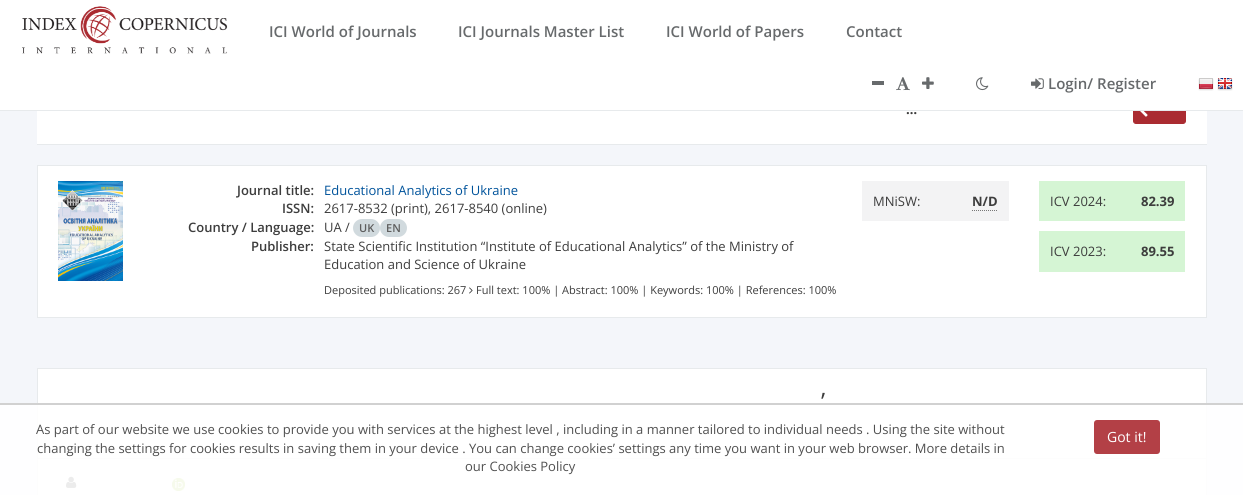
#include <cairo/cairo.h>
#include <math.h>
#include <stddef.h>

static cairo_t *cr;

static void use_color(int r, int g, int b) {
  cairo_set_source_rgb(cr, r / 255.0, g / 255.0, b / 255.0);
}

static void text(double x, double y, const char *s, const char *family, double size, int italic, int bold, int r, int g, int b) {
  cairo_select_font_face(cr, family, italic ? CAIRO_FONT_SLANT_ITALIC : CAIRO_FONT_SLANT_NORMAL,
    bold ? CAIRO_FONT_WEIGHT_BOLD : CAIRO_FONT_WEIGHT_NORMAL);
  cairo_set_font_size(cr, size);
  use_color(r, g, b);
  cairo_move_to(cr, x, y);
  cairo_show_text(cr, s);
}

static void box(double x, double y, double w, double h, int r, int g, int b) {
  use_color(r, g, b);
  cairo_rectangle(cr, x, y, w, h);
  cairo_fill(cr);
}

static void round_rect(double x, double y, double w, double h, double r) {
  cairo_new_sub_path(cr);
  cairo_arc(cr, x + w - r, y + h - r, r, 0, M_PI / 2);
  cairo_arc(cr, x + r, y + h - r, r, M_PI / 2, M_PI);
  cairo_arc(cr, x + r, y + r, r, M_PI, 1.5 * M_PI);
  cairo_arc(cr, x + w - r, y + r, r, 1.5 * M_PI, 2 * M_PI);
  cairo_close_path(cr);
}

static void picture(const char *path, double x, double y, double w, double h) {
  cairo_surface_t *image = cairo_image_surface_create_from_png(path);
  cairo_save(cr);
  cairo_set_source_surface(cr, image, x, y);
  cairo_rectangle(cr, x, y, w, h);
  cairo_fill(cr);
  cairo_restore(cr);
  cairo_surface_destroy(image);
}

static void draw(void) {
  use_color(244, 246, 250);
  cairo_paint(cr);
  box(37, 111, 1170, 33, 255, 255, 255);
  use_color(170, 43, 49);
  round_rect(1133.5, 100.5, 52, 23, 2.5);
  cairo_fill_preserve(cr);
  cairo_set_line_width(cr, 1);
  cairo_stroke(cr);
  box(0, 0, 1243, 110, 255, 255, 255);
  box(0, 110, 1243, 1, 231, 234, 236);
  picture("img_01.png", 22, 6, 206, 48);
  box(872, 81, 12, 4, 103, 106, 108);
  picture("img_02.png", 896, 77, 14, 14);
  picture("img_03.png", 922, 77, 12, 12);
  picture("img_04.png", 976, 77, 13, 14);
  picture("img_05.png", 1031, 78, 13, 11);
  picture("img_06.png", 1198, 78, 16, 13);
  picture("img_07.png", 1217, 78, 16, 13);
  box(37, 144, 1170, 1, 231, 234, 236);
  picture("img_08.png", 1140, 111, 8, 6);
  use_color(255, 255, 255);
  cairo_rectangle(cr, 37.5, 165.5, 1169, 152);
  cairo_fill_preserve(cr);
  use_color(231, 234, 236);
  cairo_stroke(cr);
  picture("img_09.png", 58, 181, 65, 100);
  use_color(209, 218, 222);
  round_rect(353, 219, 27, 18, 9);
  cairo_fill(cr);
  round_rect(380, 219, 27, 18, 9);
  cairo_fill(cr);
  box(862, 181, 147, 40, 243, 243, 244);
  cairo_new_path(cr);
  cairo_move_to(cr, 972, 210.5);
  cairo_line_to(cr, 998, 210.5);
  use_color(119, 119, 119);
  cairo_set_dash(cr, (double[]){1, 1}, 2, 0);
  cairo_stroke(cr);
  box(1039, 181, 146, 40, 213, 245, 212);
  box(1039, 231, 146, 41, 213, 245, 212);
  picture("img_10.png", 469, 287, 4, 7);
  box(38, 369, 1168, 89, 255, 255, 255);
  box(37, 368, 1170, 1, 231, 234, 236);
  box(1206, 368, 1, 90, 231, 234, 236);
  box(37, 368, 1, 90, 231, 234, 236);
  use_color(255, 255, 255);
  cairo_rectangle(cr, 37.5, 458.5, 1169, 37);
  cairo_fill_preserve(cr);
  use_color(231, 234, 236);
  cairo_set_dash(cr, NULL, 0, 0);
  cairo_stroke(cr);
  picture("img_11.png", 66, 476, 11, 12);
  picture("img_12.png", 172, 478, 13, 13);
  cairo_set_source_rgba(cr, 1, 1, 1, 0.9);
  cairo_rectangle(cr, 0, 403, 1243, 92);
  cairo_fill(cr);
  cairo_set_source_rgba(cr, 0.8, 0.8, 0.8, 0.9);
  cairo_rectangle(cr, 0, 403, 1243, 2);
  cairo_fill(cr);
  use_color(179, 64, 70);
  round_rect(1094, 420, 66, 34, 3);
  cairo_fill(cr);
  text(269, 37, "ICI World of Journals", "Open Sans SemiBold", 15, 0, 0, 103, 106, 108);
  text(458, 37, "ICI Journals Master List", "Open Sans SemiBold", 15, 0, 0, 103, 106, 108);
  text(666, 37, "ICI World of Papers", "Open Sans SemiBold", 15, 0, 0, 103, 106, 108);
  text(846, 37, "Contact", "Open Sans SemiBold", 15, 0, 0, 103, 106, 108);
  text(1048, 89, "Login/ Register", "Open Sans SemiBold", 15, 0, 0, 103, 106, 108);
  text(906, 114, "…", "Open Sans", 13, 0, 1, 61, 61, 61);
  text(237, 195, "Journal title:", "Open Sans SemiBold", 13, 0, 0, 61, 61, 61);
  text(324, 195, "Educational Analytics of Ukraine", "Open Sans", 13, 0, 0, 0, 83, 155);
  text(282, 213, "ISSN:", "Open Sans SemiBold", 13, 0, 0, 61, 61, 61);
  text(324, 213, "2617-8532 (print), 2617-8540 (online)", "Open Sans", 13, 0, 0, 61, 61, 61);
  text(188, 232, "Country / Language:", "Open Sans SemiBold", 13, 0, 0, 61, 61, 61);
  text(324, 232, "UA /", "Open Sans", 13, 0, 0, 61, 61, 61);
  text(359, 232, "UK", "Open Sans SemiBold", 11, 0, 0, 94, 94, 94);
  text(386, 232, "EN", "Open Sans SemiBold", 11, 0, 0, 94, 94, 94);
  text(251, 251, "Publisher:", "Open Sans SemiBold", 13, 0, 0, 61, 61, 61);
  text(324, 251, "State Scientific Institution “Institute of Educational Analytics” of the Ministry of", "Open Sans", 13, 0, 0, 61, 61, 61);
  text(324, 269, "Education and Science of Ukraine", "Open Sans", 13, 0, 0, 61, 61, 61);
  text(873, 206, "MNiSW:", "Open Sans", 13, 0, 0, 61, 61, 61);
  text(972, 206, "N/D", "Open Sans", 13, 0, 1, 61, 61, 61);
  text(1050, 206, "ICV 2024:", "Open Sans", 13, 0, 0, 61, 61, 61);
  text(1141, 206, "82.39", "Open Sans", 13, 0, 1, 61, 61, 61);
  text(1050, 256, "ICV 2023:", "Open Sans", 13, 0, 0, 61, 61, 61);
  text(1141, 256, "89.55", "Open Sans", 13, 0, 1, 61, 61, 61);
  text(324, 294, "Deposited publications: 267", "Open Sans", 11, 0, 0, 61, 61, 61);
  text(476, 294, "Full text: 100% | Abstract: 100% | Keywords: 100% | References: 100%", "Open Sans", 11, 0, 0, 61, 61, 61);
  text(821, 410, "’", "Open Sans", 24, 0, 0, 61, 61, 61);
  text(36, 434, "As part of our website we use cookies to provide you with services at the highest level , including in a manner tailored to individual needs . Using the site without", "Open Sans", 13, 0, 0, 80, 80, 80);
  text(37, 453, "changing the settings for cookies results in saving them in your device . You can change cookies’ settings any time you want in your web browser. More details in", "Open Sans", 13, 0, 0, 80, 80, 80);
  text(465, 471, "our Cookies Policy", "Open Sans", 13, 0, 0, 80, 80, 80);
  text(1107, 442, "Got it!", "Open Sans", 14, 0, 0, 255, 255, 255);
}

int main(void) {
  cairo_surface_t *surface = cairo_image_surface_create(CAIRO_FORMAT_RGB24, 1243, 495);
  cr = cairo_create(surface);
  cairo_font_options_t *options = cairo_font_options_create();
  cairo_font_options_set_hint_metrics(options, CAIRO_HINT_METRICS_OFF);
  cairo_font_options_set_hint_style(options, CAIRO_HINT_STYLE_NONE);
  cairo_set_font_options(cr, options);
  cairo_set_miter_limit(cr, 4);
  draw();
  cairo_surface_write_to_png(surface, "out.png");
  cairo_font_options_destroy(options);
  cairo_destroy(cr);
  cairo_surface_destroy(surface);
  return 0;
}
